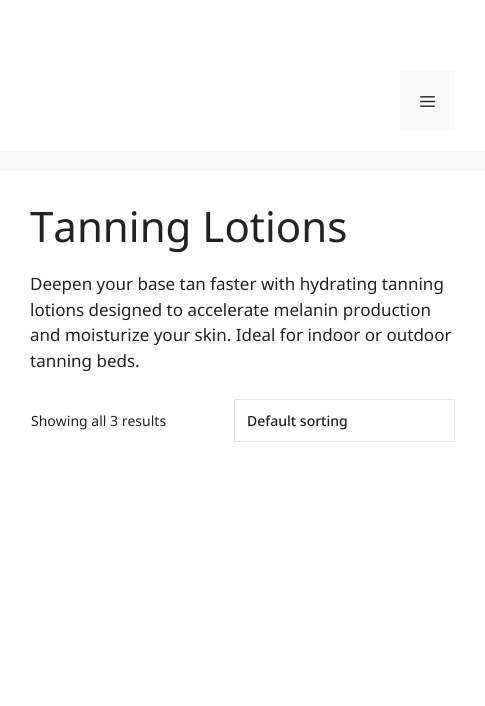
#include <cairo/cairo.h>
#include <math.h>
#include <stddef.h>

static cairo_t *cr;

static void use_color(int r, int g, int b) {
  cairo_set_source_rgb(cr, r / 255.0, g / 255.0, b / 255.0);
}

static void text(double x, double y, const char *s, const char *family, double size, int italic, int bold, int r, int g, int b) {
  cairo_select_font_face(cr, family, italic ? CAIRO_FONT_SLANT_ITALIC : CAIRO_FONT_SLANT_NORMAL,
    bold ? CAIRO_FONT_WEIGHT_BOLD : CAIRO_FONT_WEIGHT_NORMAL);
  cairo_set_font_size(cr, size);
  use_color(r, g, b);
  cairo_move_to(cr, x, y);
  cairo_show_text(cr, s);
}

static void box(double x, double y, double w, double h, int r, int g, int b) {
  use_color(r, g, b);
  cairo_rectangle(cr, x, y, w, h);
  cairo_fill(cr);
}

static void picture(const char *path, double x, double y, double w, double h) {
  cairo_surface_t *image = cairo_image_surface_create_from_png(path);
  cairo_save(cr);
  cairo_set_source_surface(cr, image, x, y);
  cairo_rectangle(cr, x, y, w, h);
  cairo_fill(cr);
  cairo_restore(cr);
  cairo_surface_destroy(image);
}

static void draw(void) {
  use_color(247, 248, 249);
  cairo_paint(cr);
  box(0, 0, 485, 151, 255, 255, 255);
  box(400, 71, 55, 60, 250, 250, 250);
  picture("img_01.png", 420, 96, 15, 11);
  box(0, 171, 485, 535, 255, 255, 255);
  cairo_rectangle(cr, 234.5, 399.5, 220, 42);
  use_color(230, 230, 230);
  cairo_set_line_width(cr, 1);
  cairo_stroke(cr);
  text(30, 242, "Tanning Lotions", "Noto Sans", 42, 0, 0, 34, 34, 34);
  text(30, 290, "Deepen your base tan faster with hydrating tanning", "Noto Sans", 17, 0, 0, 34, 34, 34);
  text(30, 316, "lotions designed to accelerate melanin production", "Noto Sans", 17, 0, 0, 34, 34, 34);
  text(30, 341, "and moisturize your skin. Ideal for indoor or outdoor", "Noto Sans", 17, 0, 0, 34, 34, 34);
  text(30, 367, "tanning beds.", "Noto Sans", 17, 0, 0, 34, 34, 34);
  text(31, 426, "Showing all 3 results", "Noto Sans", 14, 0, 0, 34, 34, 34);
  text(247, 426, "Default sorting", "Noto Sans Medium", 14, 0, 0, 34, 34, 34);
}

int main(void) {
  cairo_surface_t *surface = cairo_image_surface_create(CAIRO_FORMAT_RGB24, 485, 706);
  cr = cairo_create(surface);
  cairo_font_options_t *options = cairo_font_options_create();
  cairo_font_options_set_hint_metrics(options, CAIRO_HINT_METRICS_OFF);
  cairo_font_options_set_hint_style(options, CAIRO_HINT_STYLE_NONE);
  cairo_set_font_options(cr, options);
  cairo_set_miter_limit(cr, 4);
  draw();
  cairo_surface_write_to_png(surface, "out.png");
  cairo_font_options_destroy(options);
  cairo_destroy(cr);
  cairo_surface_destroy(surface);
  return 0;
}
